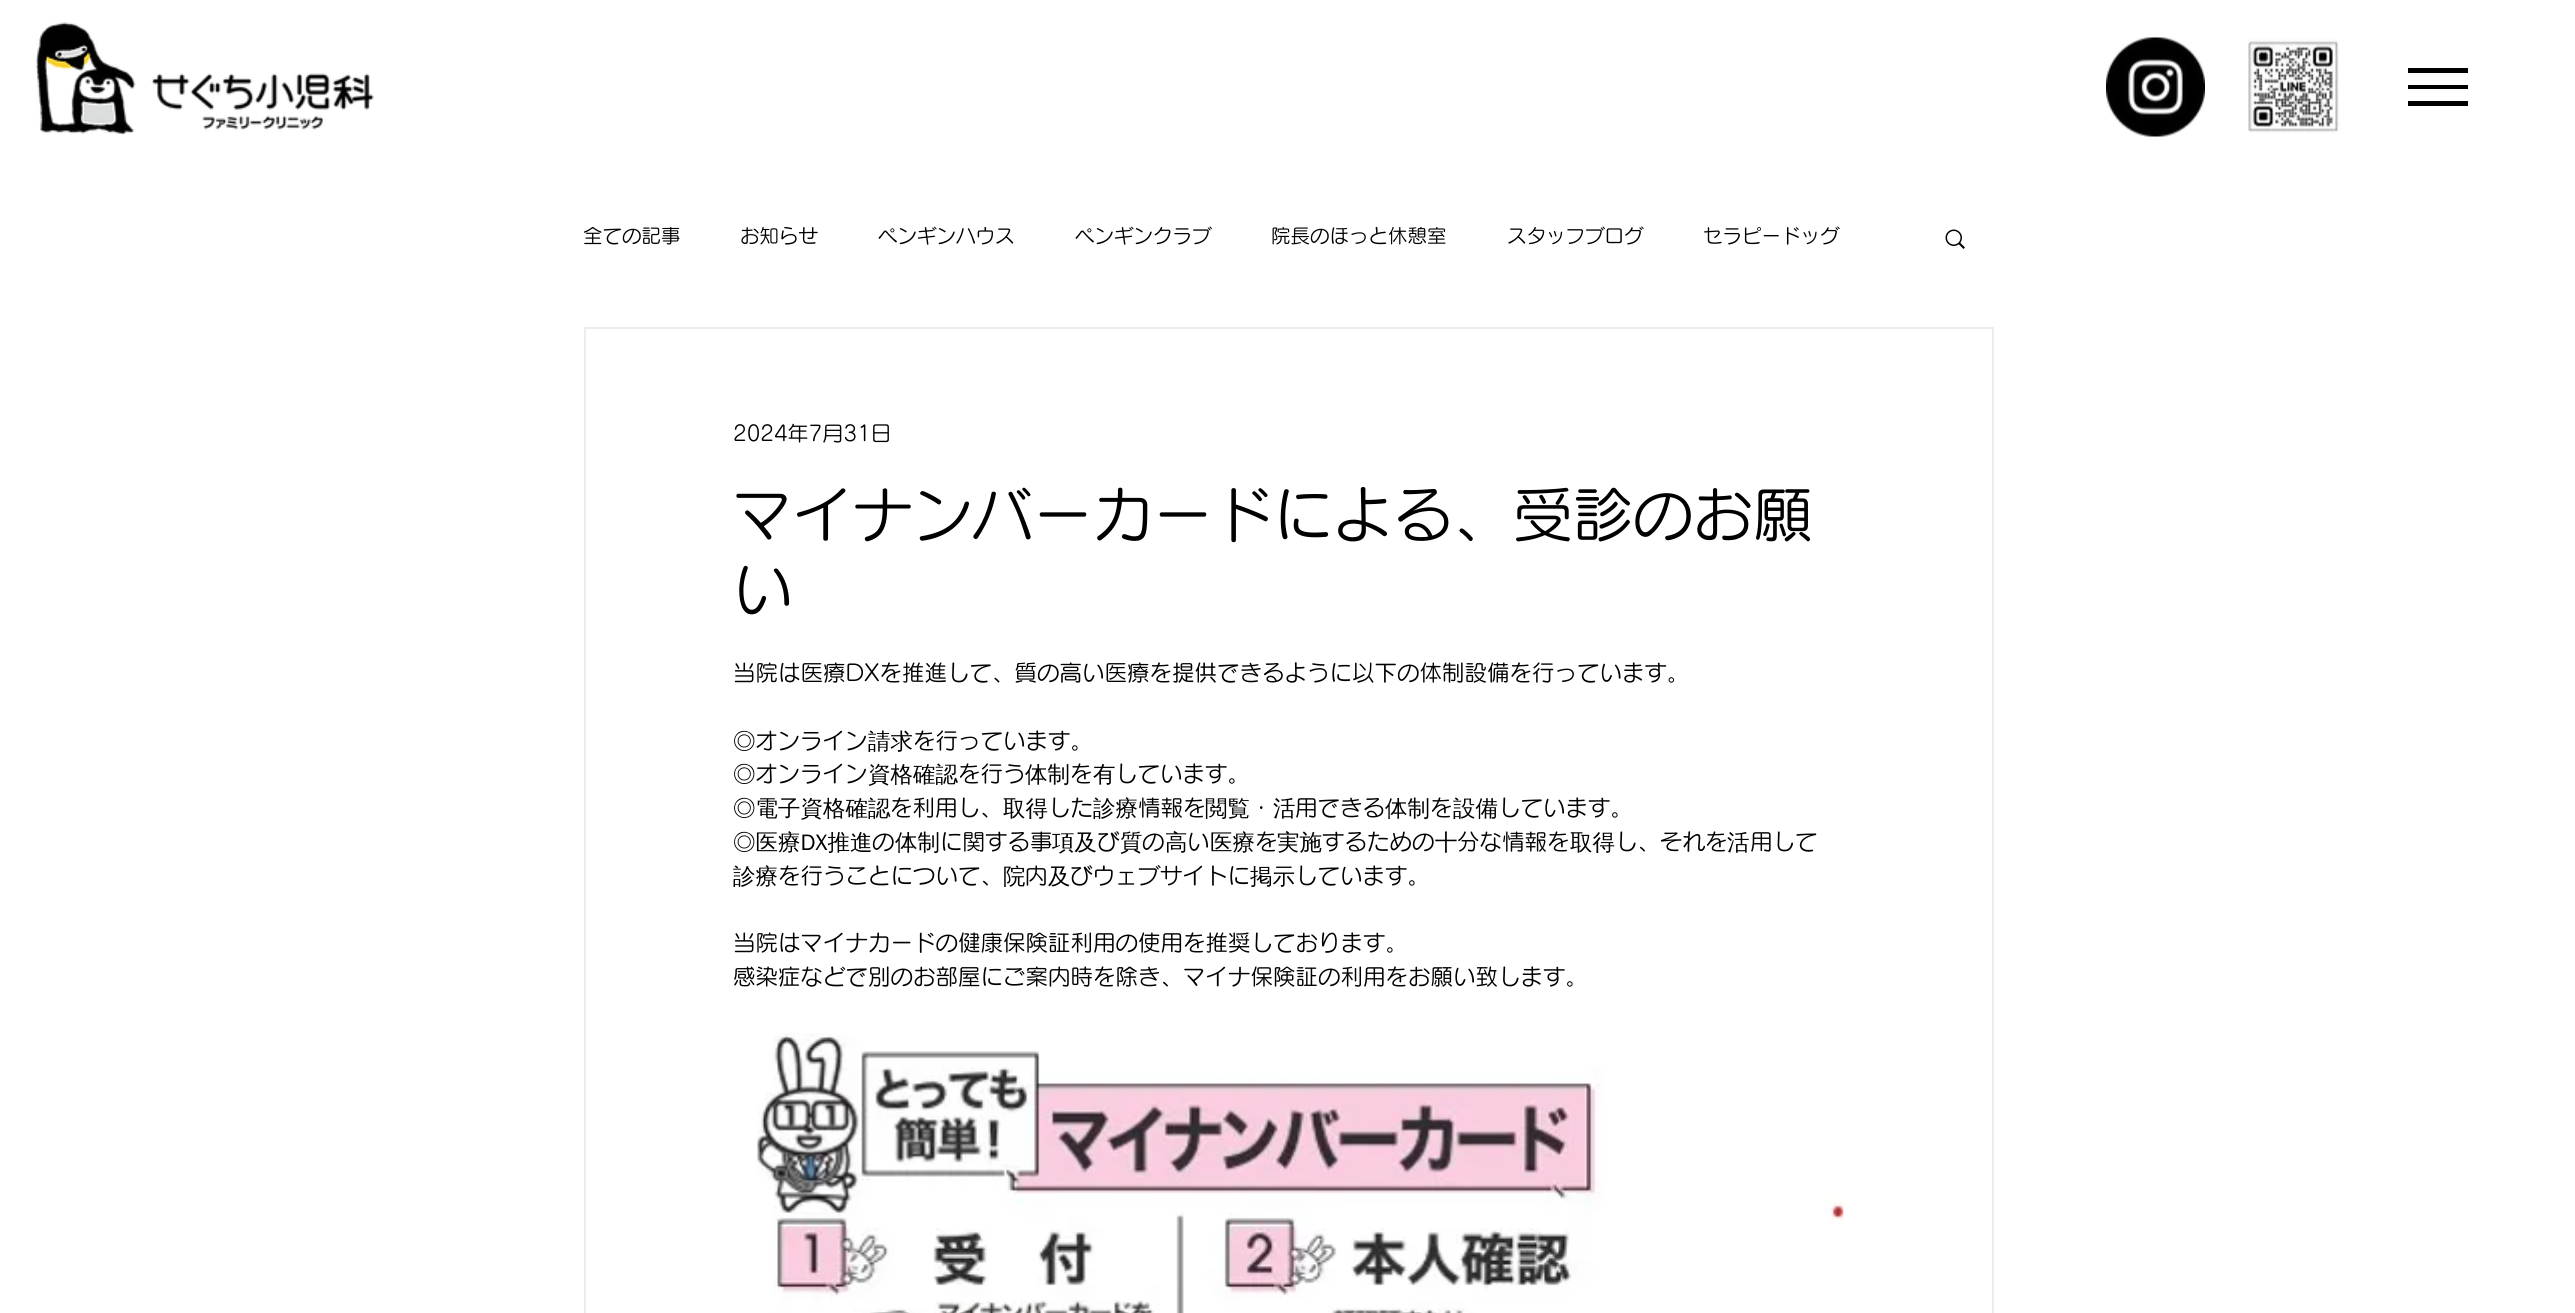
#include <cairo/cairo.h>
#include <math.h>
#include <stddef.h>

static cairo_t *cr;

static void use_color(int r, int g, int b) {
  cairo_set_source_rgb(cr, r / 255.0, g / 255.0, b / 255.0);
}

static void text(double x, double y, const char *s, const char *family, double size, int italic, int bold, int r, int g, int b) {
  cairo_select_font_face(cr, family, italic ? CAIRO_FONT_SLANT_ITALIC : CAIRO_FONT_SLANT_NORMAL,
    bold ? CAIRO_FONT_WEIGHT_BOLD : CAIRO_FONT_WEIGHT_NORMAL);
  cairo_set_font_size(cr, size);
  use_color(r, g, b);
  cairo_move_to(cr, x, y);
  cairo_show_text(cr, s);
}

static void box(double x, double y, double w, double h, int r, int g, int b) {
  use_color(r, g, b);
  cairo_rectangle(cr, x, y, w, h);
  cairo_fill(cr);
}

static void picture(const char *path, double x, double y, double w, double h) {
  cairo_surface_t *image = cairo_image_surface_create_from_png(path);
  cairo_save(cr);
  cairo_set_source_surface(cr, image, x, y);
  cairo_rectangle(cr, x, y, w, h);
  cairo_fill(cr);
  cairo_restore(cr);
  cairo_surface_destroy(image);
}

static void draw(void) {
  use_color(255, 255, 255);
  cairo_paint(cr);
  picture("img_01.png", 35, 22, 339, 113);
  picture("img_02.png", 2106, 37, 99, 100);
  picture("img_03.png", 2248, 38, 91, 95);
  box(2408, 101, 60, 5, 0, 0, 0);
  box(2408, 68, 60, 5, 0, 0, 0);
  box(2408, 85, 60, 4, 0, 0, 0);
  picture("img_04.png", 1945, 229, 20, 20);
  cairo_rectangle(cr, 585, 328, 1408, 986);
  use_color(238, 236, 236);
  cairo_stroke(cr);
  picture("img_05.png", 757, 1033, 1087, 280);
  text(583, 243, "全ての記事", "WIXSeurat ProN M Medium", 19.5, 0, 0, 0, 0, 0);
  text(740, 243, "お知らせ", "WIXSeurat ProN M Medium", 19.5, 0, 0, 0, 0, 0);
  text(878, 243, "ペンギンハウス", "WIXSeurat ProN M Medium", 19.5, 0, 0, 0, 0, 0);
  text(1075, 243, "ペンギンクラブ", "WIXSeurat ProN M Medium", 19.5, 0, 0, 0, 0, 0);
  text(1271, 243, "院長のほっと休憩室", "WIXSeurat ProN M Medium", 19.5, 0, 0, 0, 0, 0);
  text(1507, 243, "スタッフブログ", "WIXSeurat ProN M Medium", 19.5, 0, 0, 0, 0, 0);
  text(1703, 243, "セラピードッグ", "WIXSeurat ProN M Medium", 19.5, 0, 0, 0, 0, 0);
  text(733, 441, "2024年7月31日", "WIXSeurat ProN M Medium", 21, 0, 0, 0, 0, 0);
  text(733, 537, "マイナンバーカードによる、受診のお願", "WIXSeurat ProN M Medium", 60, 0, 0, 0, 0, 0);
  text(733, 612, "い", "WIXSeurat ProN M Medium", 60, 0, 0, 0, 0, 0);
  text(733, 681, "当院は医療DXを推進して、質の高い医療を提供できるように以下の体制設備を行っています。", "WIXSeurat ProN M Medium", 22.5, 0, 0, 0, 0, 0);
  text(733, 749, "◎", "WenQuanYi Zen Hei Medium", 22.5, 0, 0, 0, 0, 0);
  text(755, 749, "オンライン", "WIXSeurat ProN M Medium", 22.5, 0, 0, 0, 0, 0);
  text(868, 749, "請求", "WenQuanYi Zen Hei Medium", 22.5, 0, 0, 0, 0, 0);
  text(913, 749, "を行っています。", "WIXSeurat ProN M Medium", 22.5, 0, 0, 0, 0, 0);
  text(733, 782, "◎", "WenQuanYi Zen Hei Medium", 22.5, 0, 0, 0, 0, 0);
  text(755, 782, "オンライン", "WIXSeurat ProN M Medium", 22.5, 0, 0, 0, 0, 0);
  text(868, 782, "資格確認", "WenQuanYi Zen Hei Medium", 22.5, 0, 0, 0, 0, 0);
  text(958, 782, "を行う", "WIXSeurat ProN M Medium", 22.5, 0, 0, 0, 0, 0);
  text(1025, 782, "体制", "WenQuanYi Zen Hei Medium", 22.5, 0, 0, 0, 0, 0);
  text(1070, 782, "を", "WIXSeurat ProN M Medium", 22.5, 0, 0, 0, 0, 0);
  text(1093, 782, "有", "WenQuanYi Zen Hei Medium", 22.5, 0, 0, 0, 0, 0);
  text(1115, 782, "しています。", "WIXSeurat ProN M Medium", 22.5, 0, 0, 0, 0, 0);
  text(733, 816, "◎電子資格確認", "WenQuanYi Zen Hei Medium", 22.5, 0, 0, 0, 0, 0);
  text(890, 816, "を利用し、", "WIXSeurat ProN M Medium", 22.5, 0, 0, 0, 0, 0);
  text(1003, 816, "取得", "WenQuanYi Zen Hei Medium", 22.5, 0, 0, 0, 0, 0);
  text(1048, 816, "した", "WIXSeurat ProN M Medium", 22.5, 0, 0, 0, 0, 0);
  text(1093, 816, "診療", "WenQuanYi Zen Hei Medium", 22.5, 0, 0, 0, 0, 0);
  text(1138, 816, "情報を", "WIXSeurat ProN M Medium", 22.5, 0, 0, 0, 0, 0);
  text(1205, 816, "閲覧", "WenQuanYi Zen Hei Medium", 22.5, 0, 0, 0, 0, 0);
  text(1250, 816, "・", "WIXSeurat ProN M Medium", 22.5, 0, 0, 0, 0, 0);
  text(1273, 816, "活", "WenQuanYi Zen Hei Medium", 22.5, 0, 0, 0, 0, 0);
  text(1295, 816, "用できる", "WIXSeurat ProN M Medium", 22.5, 0, 0, 0, 0, 0);
  text(1385, 816, "体制", "WenQuanYi Zen Hei Medium", 22.5, 0, 0, 0, 0, 0);
  text(1430, 816, "を", "WIXSeurat ProN M Medium", 22.5, 0, 0, 0, 0, 0);
  text(1453, 816, "設備", "WenQuanYi Zen Hei Medium", 22.5, 0, 0, 0, 0, 0);
  text(1498, 816, "しています。", "WIXSeurat ProN M Medium", 22.5, 0, 0, 0, 0, 0);
  text(733, 850, "◎医療DX推進", "WenQuanYi Zen Hei Medium", 22.5, 0, 0, 0, 0, 0);
  text(872, 850, "の", "WIXSeurat ProN M Medium", 22.5, 0, 0, 0, 0, 0);
  text(895, 850, "体制", "WenQuanYi Zen Hei Medium", 22.5, 0, 0, 0, 0, 0);
  text(940, 850, "に関する事", "WIXSeurat ProN M Medium", 22.5, 0, 0, 0, 0, 0);
  text(1052, 850, "項及", "WenQuanYi Zen Hei Medium", 22.5, 0, 0, 0, 0, 0);
  text(1097, 850, "び", "WIXSeurat ProN M Medium", 22.5, 0, 0, 0, 0, 0);
  text(1120, 850, "質", "WenQuanYi Zen Hei Medium", 22.5, 0, 0, 0, 0, 0);
  text(1142, 850, "の", "WIXSeurat ProN M Medium", 22.5, 0, 0, 0, 0, 0);
  text(1165, 850, "高", "WenQuanYi Zen Hei Medium", 22.5, 0, 0, 0, 0, 0);
  text(1187, 850, "い", "WIXSeurat ProN M Medium", 22.5, 0, 0, 0, 0, 0);
  text(1210, 850, "医療", "WenQuanYi Zen Hei Medium", 22.5, 0, 0, 0, 0, 0);
  text(1255, 850, "を", "WIXSeurat ProN M Medium", 22.5, 0, 0, 0, 0, 0);
  text(1277, 850, "実施", "WenQuanYi Zen Hei Medium", 22.5, 0, 0, 0, 0, 0);
  text(1322, 850, "するための", "WIXSeurat ProN M Medium", 22.5, 0, 0, 0, 0, 0);
  text(1435, 850, "十", "WenQuanYi Zen Hei Medium", 22.5, 0, 0, 0, 0, 0);
  text(1457, 850, "分な情報を", "WIXSeurat ProN M Medium", 22.5, 0, 0, 0, 0, 0);
  text(1570, 850, "取得", "WenQuanYi Zen Hei Medium", 22.5, 0, 0, 0, 0, 0);
  text(1615, 850, "し、それを", "WIXSeurat ProN M Medium", 22.5, 0, 0, 0, 0, 0);
  text(1727, 850, "活", "WenQuanYi Zen Hei Medium", 22.5, 0, 0, 0, 0, 0);
  text(1750, 850, "用して", "WIXSeurat ProN M Medium", 22.5, 0, 0, 0, 0, 0);
  text(733, 884, "診療", "WenQuanYi Zen Hei Medium", 22.5, 0, 0, 0, 0, 0);
  text(778, 884, "を行うことについて、", "WIXSeurat ProN M Medium", 22.5, 0, 0, 0, 0, 0);
  text(1003, 884, "院", "WenQuanYi Zen Hei Medium", 22.5, 0, 0, 0, 0, 0);
  text(1025, 884, "内", "WIXSeurat ProN M Medium", 22.5, 0, 0, 0, 0, 0);
  text(1048, 884, "及", "WenQuanYi Zen Hei Medium", 22.5, 0, 0, 0, 0, 0);
  text(1070, 884, "びウェブサイトに", "WIXSeurat ProN M Medium", 22.5, 0, 0, 0, 0, 0);
  text(1250, 884, "掲示", "WenQuanYi Zen Hei Medium", 22.5, 0, 0, 0, 0, 0);
  text(1295, 884, "しています。", "WIXSeurat ProN M Medium", 22.5, 0, 0, 0, 0, 0);
  text(733, 951, "当院はマイナカードの健康保険証利用の使用を推奨しております。", "WIXSeurat ProN M Medium", 22.5, 0, 0, 0, 0, 0);
  text(733, 985, "感染症などで別のお部屋にご案内時を除き、マイナ保険証の利用をお願い致します。", "WIXSeurat ProN M Medium", 22.5, 0, 0, 0, 0, 0);
}

int main(void) {
  cairo_surface_t *surface = cairo_image_surface_create(CAIRO_FORMAT_RGB24, 2575, 1313);
  cr = cairo_create(surface);
  cairo_font_options_t *options = cairo_font_options_create();
  cairo_font_options_set_hint_metrics(options, CAIRO_HINT_METRICS_OFF);
  cairo_font_options_set_hint_style(options, CAIRO_HINT_STYLE_NONE);
  cairo_set_font_options(cr, options);
  cairo_set_miter_limit(cr, 4);
  draw();
  cairo_surface_write_to_png(surface, "out.png");
  cairo_font_options_destroy(options);
  cairo_destroy(cr);
  cairo_surface_destroy(surface);
  return 0;
}
